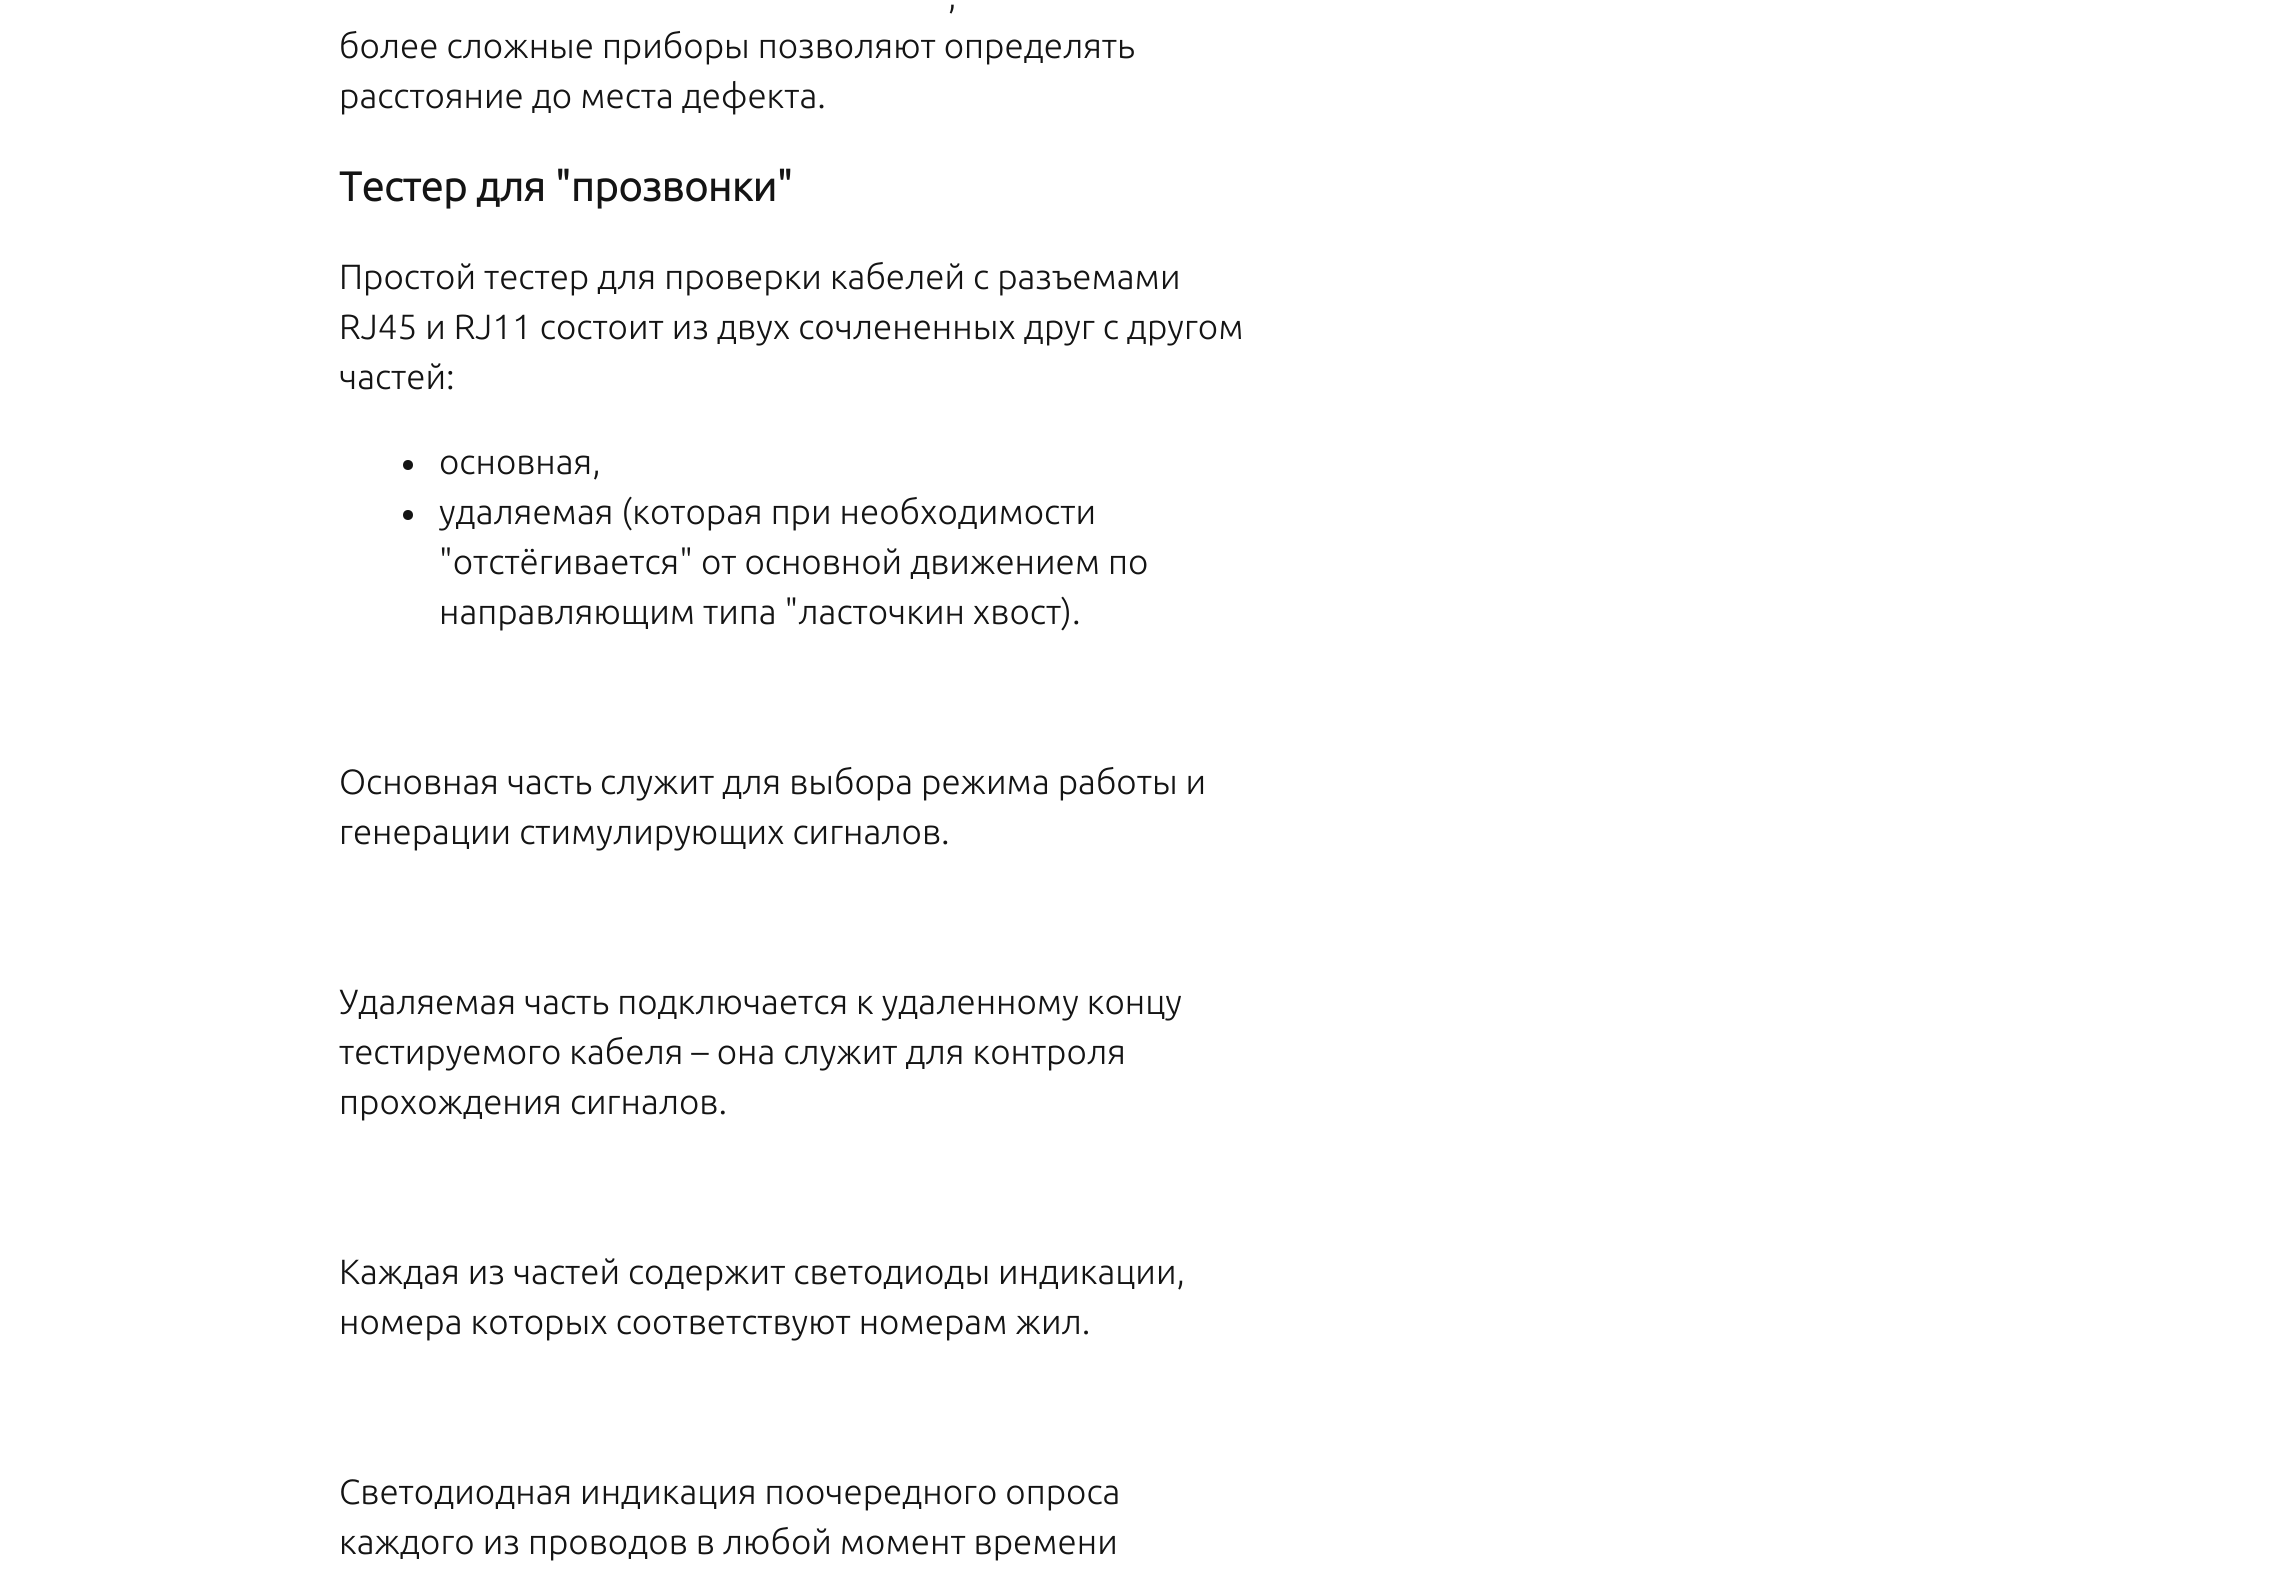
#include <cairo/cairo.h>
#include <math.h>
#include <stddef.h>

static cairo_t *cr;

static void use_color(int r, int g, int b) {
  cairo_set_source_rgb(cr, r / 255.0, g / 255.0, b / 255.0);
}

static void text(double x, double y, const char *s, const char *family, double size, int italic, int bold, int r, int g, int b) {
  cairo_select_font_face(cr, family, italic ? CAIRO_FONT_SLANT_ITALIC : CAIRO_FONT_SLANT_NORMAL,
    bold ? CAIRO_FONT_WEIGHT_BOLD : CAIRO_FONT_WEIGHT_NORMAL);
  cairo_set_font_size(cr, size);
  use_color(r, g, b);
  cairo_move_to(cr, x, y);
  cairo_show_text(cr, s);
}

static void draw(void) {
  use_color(255, 255, 255);
  cairo_paint(cr);
  use_color(20, 20, 20);
  cairo_arc(cr, 408, 465, 5, 0, 2 * M_PI);
  cairo_fill(cr);
  cairo_arc(cr, 408, 515, 5, 0, 2 * M_PI);
  cairo_fill(cr);
  text(948, 8, ",", "Ubuntu Light", 35, 0, 0, 20, 20, 20);
  text(339, 58, "более сложные приборы позволяют определять", "Ubuntu Light", 35, 0, 0, 20, 20, 20);
  text(339, 108, "расстояние до места дефекта.", "Ubuntu Light", 35, 0, 0, 20, 20, 20);
  text(339, 201, "Тестер для \"прозвонки\"", "Ubuntu", 41, 0, 1, 20, 20, 20);
  text(339, 289, "Простой тестер для проверки кабелей с разъемами", "Ubuntu Light", 35, 0, 0, 20, 20, 20);
  text(339, 339, "RJ45 и RJ11 состоит из двух сочлененных друг с другом", "Ubuntu Light", 35, 0, 0, 20, 20, 20);
  text(339, 389, "частей:", "Ubuntu Light", 35, 0, 0, 20, 20, 20);
  text(439, 474, "основная,", "Ubuntu Light", 35, 0, 0, 20, 20, 20);
  text(439, 524, "удаляемая (которая при необходимости", "Ubuntu Light", 35, 0, 0, 20, 20, 20);
  text(439, 574, "\"отстёгивается\" от основной движением по", "Ubuntu Light", 35, 0, 0, 20, 20, 20);
  text(439, 624, "направляющим типа \"ласточкин хвост).", "Ubuntu Light", 35, 0, 0, 20, 20, 20);
  text(339, 794, "Основная часть служит для выбора режима работы и", "Ubuntu Light", 35, 0, 0, 20, 20, 20);
  text(339, 844, "генерации стимулирующих сигналов.", "Ubuntu Light", 35, 0, 0, 20, 20, 20);
  text(339, 1014, "Удаляемая часть подключается к удаленному концу", "Ubuntu Light", 35, 0, 0, 20, 20, 20);
  text(339, 1064, "тестируемого кабеля – она служит для контроля", "Ubuntu Light", 35, 0, 0, 20, 20, 20);
  text(339, 1114, "прохождения сигналов.", "Ubuntu Light", 35, 0, 0, 20, 20, 20);
  text(339, 1284, "Каждая из частей содержит светодиоды индикации,", "Ubuntu Light", 35, 0, 0, 20, 20, 20);
  text(339, 1334, "номера которых соответствуют номерам жил.", "Ubuntu Light", 35, 0, 0, 20, 20, 20);
  text(339, 1504, "Светодиодная индикация поочередного опроса", "Ubuntu Light", 35, 0, 0, 20, 20, 20);
  text(339, 1554, "каждого из проводов в любой момент времени", "Ubuntu Light", 35, 0, 0, 20, 20, 20);
}

int main(void) {
  cairo_surface_t *surface = cairo_image_surface_create(CAIRO_FORMAT_RGB24, 2271, 1587);
  cr = cairo_create(surface);
  cairo_font_options_t *options = cairo_font_options_create();
  cairo_font_options_set_hint_metrics(options, CAIRO_HINT_METRICS_OFF);
  cairo_font_options_set_hint_style(options, CAIRO_HINT_STYLE_NONE);
  cairo_set_font_options(cr, options);
  cairo_set_miter_limit(cr, 4);
  draw();
  cairo_surface_write_to_png(surface, "out.png");
  cairo_font_options_destroy(options);
  cairo_destroy(cr);
  cairo_surface_destroy(surface);
  return 0;
}
